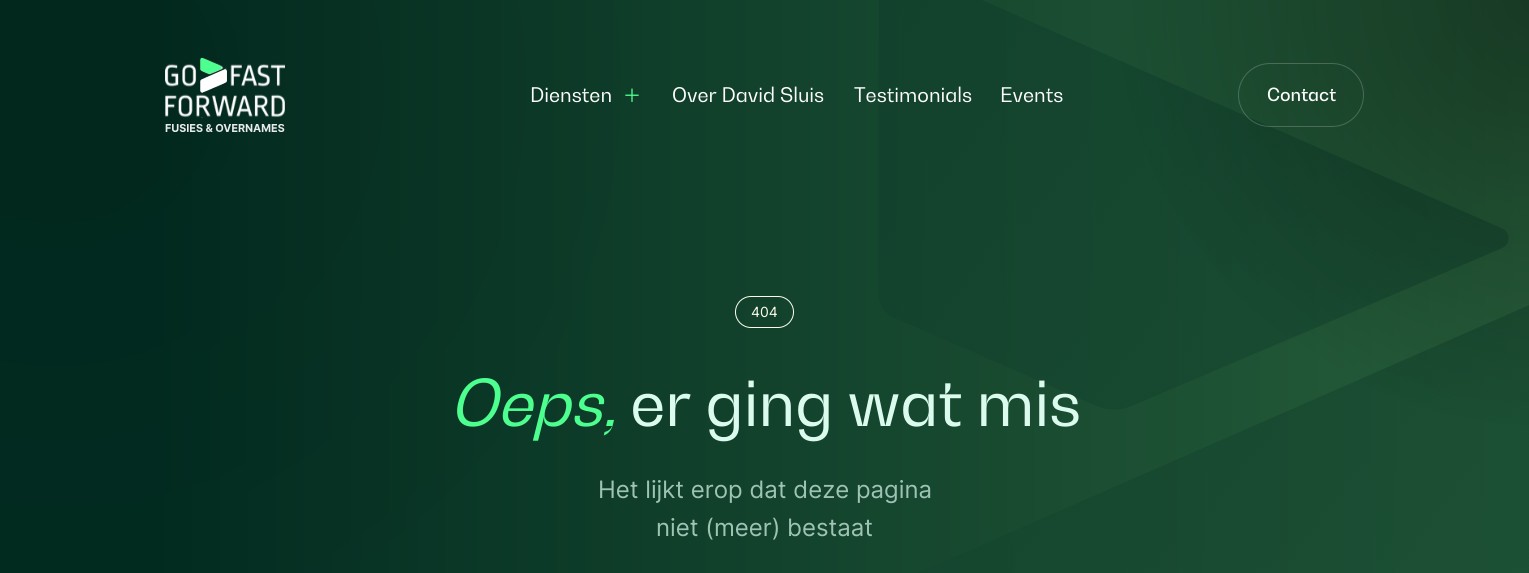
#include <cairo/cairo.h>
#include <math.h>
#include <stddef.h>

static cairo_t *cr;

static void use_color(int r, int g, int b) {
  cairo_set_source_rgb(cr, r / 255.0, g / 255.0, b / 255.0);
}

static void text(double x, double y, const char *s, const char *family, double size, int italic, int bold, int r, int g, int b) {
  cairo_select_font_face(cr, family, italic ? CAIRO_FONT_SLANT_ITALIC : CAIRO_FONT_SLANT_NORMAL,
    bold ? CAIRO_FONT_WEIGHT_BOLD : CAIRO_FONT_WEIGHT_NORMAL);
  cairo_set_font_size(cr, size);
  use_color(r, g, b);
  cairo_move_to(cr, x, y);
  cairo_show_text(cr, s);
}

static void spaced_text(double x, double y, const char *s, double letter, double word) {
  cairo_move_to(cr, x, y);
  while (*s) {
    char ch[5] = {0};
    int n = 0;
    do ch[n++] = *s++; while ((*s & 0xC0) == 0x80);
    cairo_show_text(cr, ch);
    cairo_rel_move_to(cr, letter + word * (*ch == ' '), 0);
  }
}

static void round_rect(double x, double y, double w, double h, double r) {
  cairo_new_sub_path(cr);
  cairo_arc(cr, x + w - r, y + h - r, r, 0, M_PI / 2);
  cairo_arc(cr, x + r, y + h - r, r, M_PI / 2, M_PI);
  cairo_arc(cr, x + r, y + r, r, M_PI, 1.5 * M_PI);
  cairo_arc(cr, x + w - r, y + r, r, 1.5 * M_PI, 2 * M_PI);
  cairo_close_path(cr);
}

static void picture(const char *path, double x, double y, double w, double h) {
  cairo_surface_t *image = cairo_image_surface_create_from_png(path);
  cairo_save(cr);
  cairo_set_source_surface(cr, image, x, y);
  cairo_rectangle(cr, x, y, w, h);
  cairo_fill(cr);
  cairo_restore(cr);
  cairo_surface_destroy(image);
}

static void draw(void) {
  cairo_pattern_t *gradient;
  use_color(255, 255, 255);
  cairo_paint(cr);
  gradient = cairo_pattern_create_linear(0, 406, 1529, 406);
  cairo_pattern_add_color_stop_rgba(gradient, 0.1, 0.008, 0.173, 0.129, 1);
  cairo_pattern_add_color_stop_rgba(gradient, 1, 0.149, 0.365, 0.227, 1);
  cairo_set_source(cr, gradient);
  cairo_pattern_destroy(gradient);
  cairo_rectangle(cr, 0, 0, 1529, 573);
  cairo_fill(cr);
  picture("img_03.png", 0, 0, 1529, 573);
  picture("img_01.png", 165, 57, 120, 75);
  picture("img_02.png", 625, 88, 14, 14);
  round_rect(1238.5, 63.5, 125, 63, 31.5);
  cairo_set_source_rgba(cr, 1, 1, 1, 0.2);
  cairo_set_line_width(cr, 1);
  cairo_stroke(cr);
  round_rect(735.5, 296.5, 58, 31, 15.5);
  use_color(252, 252, 234);
  cairo_stroke(cr);
  text(530, 102, "Diensten", "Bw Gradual", 20, 0, 0, 255, 255, 255);
  text(672, 102, "Over David Sluis", "Bw Gradual", 20, 0, 0, 255, 255, 255);
  text(854, 102, "Testimonials", "Bw Gradual", 20, 0, 0, 255, 255, 255);
  text(1000, 102, "Events", "Bw Gradual", 20, 0, 0, 255, 255, 255);
  text(1267, 101, "Contact", "Bw Gradual Medium", 18, 0, 0, 255, 255, 255);
  text(751, 317, "404", "Inter", 14, 0, 0, 252, 252, 234);
  cairo_select_font_face(cr, "Bw Gradual", CAIRO_FONT_SLANT_ITALIC, CAIRO_FONT_WEIGHT_NORMAL);
  cairo_set_font_size(cr, 64);
  use_color(77, 255, 142);
  spaced_text(449, 426, "Oeps,", -0.4, 0);
  cairo_select_font_face(cr, "Bw Gradual", CAIRO_FONT_SLANT_NORMAL, CAIRO_FONT_WEIGHT_NORMAL);
  use_color(218, 251, 238);
  spaced_text(630, 426, "er ging wat mis", -0.4, -0.5);
  text(598, 498, "Het lijkt erop dat deze pagina", "Inter", 24, 0, 0, 158, 195, 180);
  text(656, 536, "niet (meer) bestaat", "Inter", 24, 0, 0, 158, 195, 180);
}

int main(void) {
  cairo_surface_t *surface = cairo_image_surface_create(CAIRO_FORMAT_RGB24, 1529, 573);
  cr = cairo_create(surface);
  cairo_font_options_t *options = cairo_font_options_create();
  cairo_font_options_set_hint_metrics(options, CAIRO_HINT_METRICS_OFF);
  cairo_font_options_set_hint_style(options, CAIRO_HINT_STYLE_NONE);
  cairo_set_font_options(cr, options);
  cairo_set_miter_limit(cr, 4);
  draw();
  cairo_surface_write_to_png(surface, "out.png");
  cairo_font_options_destroy(options);
  cairo_destroy(cr);
  cairo_surface_destroy(surface);
  return 0;
}
